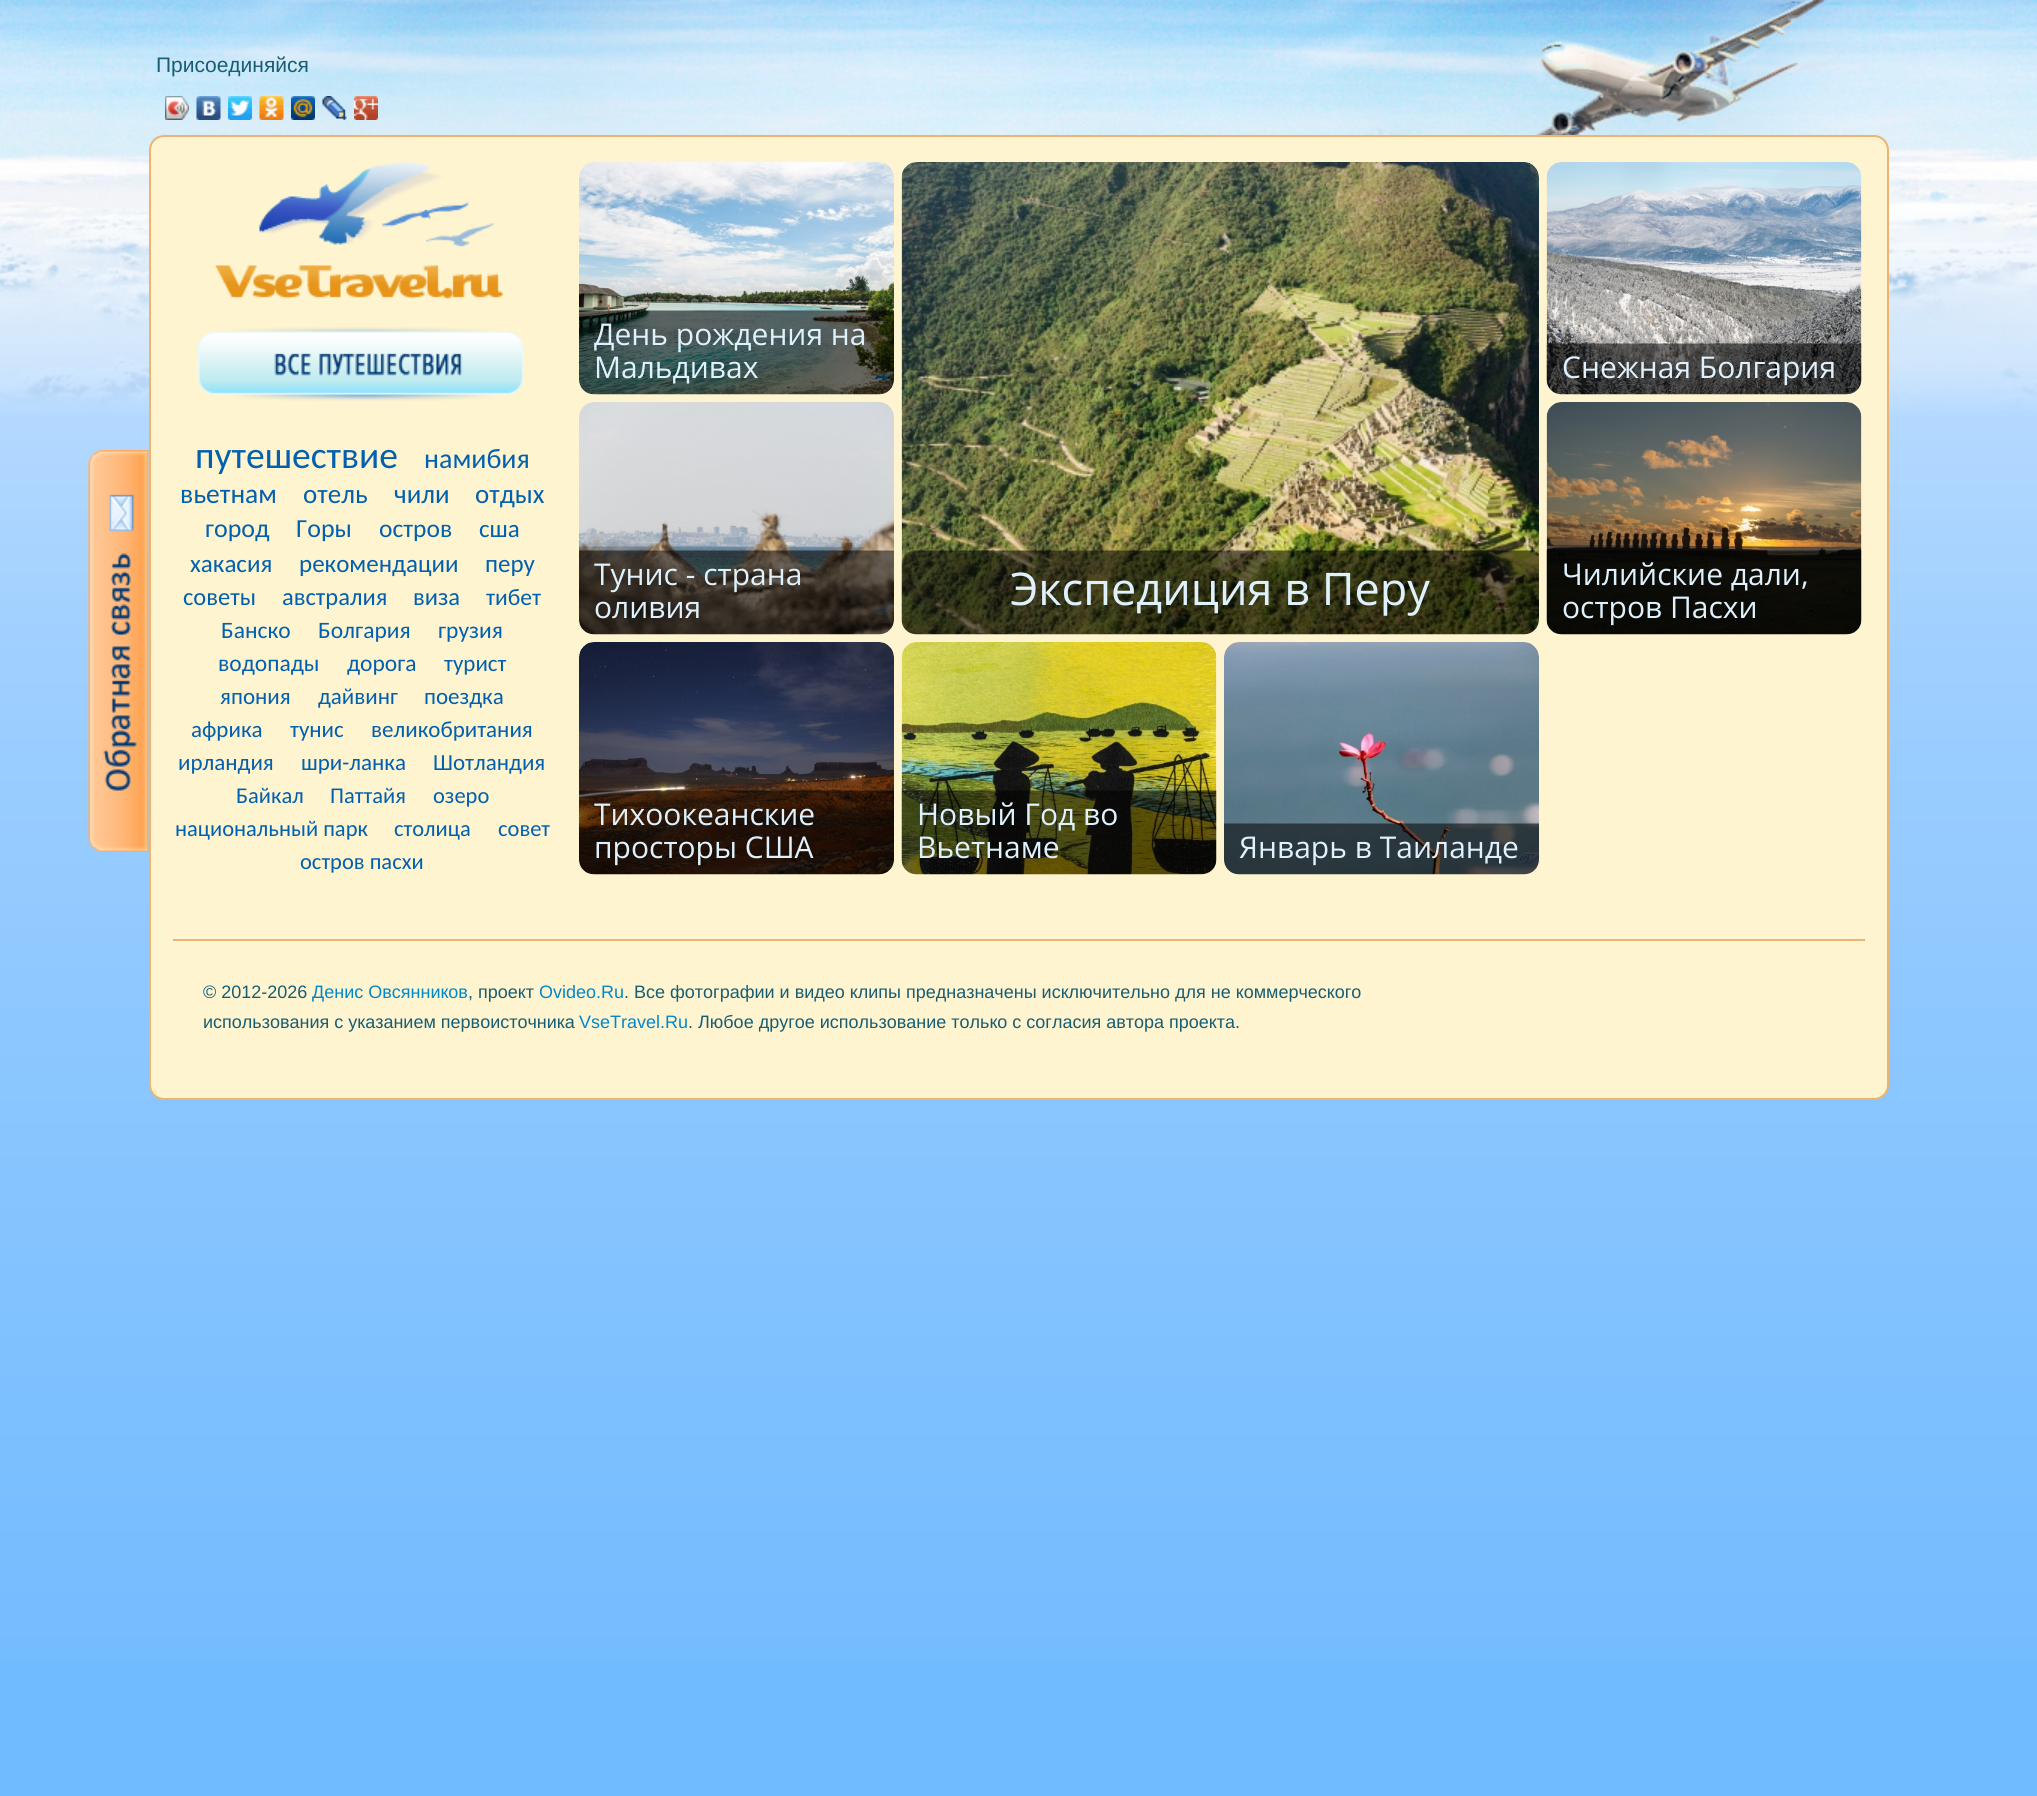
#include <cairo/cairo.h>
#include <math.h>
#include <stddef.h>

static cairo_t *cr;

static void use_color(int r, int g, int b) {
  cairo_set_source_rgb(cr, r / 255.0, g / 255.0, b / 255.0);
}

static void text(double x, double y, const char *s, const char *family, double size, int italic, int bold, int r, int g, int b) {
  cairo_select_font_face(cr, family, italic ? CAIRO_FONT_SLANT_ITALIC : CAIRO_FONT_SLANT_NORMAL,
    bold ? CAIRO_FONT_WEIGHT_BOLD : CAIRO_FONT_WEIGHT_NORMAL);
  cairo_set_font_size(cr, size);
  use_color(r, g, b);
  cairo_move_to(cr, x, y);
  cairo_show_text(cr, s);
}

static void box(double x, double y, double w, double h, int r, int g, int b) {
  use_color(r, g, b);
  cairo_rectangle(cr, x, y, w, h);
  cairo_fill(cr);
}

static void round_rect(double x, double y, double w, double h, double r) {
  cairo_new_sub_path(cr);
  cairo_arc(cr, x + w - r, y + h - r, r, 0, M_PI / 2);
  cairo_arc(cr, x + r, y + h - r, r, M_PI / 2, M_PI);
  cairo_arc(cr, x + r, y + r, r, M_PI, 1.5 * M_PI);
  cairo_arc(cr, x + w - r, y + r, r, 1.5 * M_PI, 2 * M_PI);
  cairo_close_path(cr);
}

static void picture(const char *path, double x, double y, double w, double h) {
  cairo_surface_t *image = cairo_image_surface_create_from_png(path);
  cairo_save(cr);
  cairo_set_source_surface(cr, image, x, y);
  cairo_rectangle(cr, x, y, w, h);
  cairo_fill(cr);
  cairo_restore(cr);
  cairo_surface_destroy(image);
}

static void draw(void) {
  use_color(112, 186, 255);
  cairo_paint(cr);
  picture("img_01.png", 0, 0, 2037, 1661);
  picture("img_02.png", 0, 0, 2037, 417);
  picture("img_03.png", 165, 96, 24, 24);
  picture("img_04.png", 165, 96, 24, 24);
  picture("img_05.png", 196, 96, 25, 24);
  picture("img_06.png", 228, 96, 24, 24);
  picture("img_07.png", 259, 96, 25, 24);
  picture("img_08.png", 291, 96, 24, 24);
  picture("img_09.png", 322, 96, 25, 24);
  picture("img_10.png", 354, 96, 24, 24);
  picture("img_11.png", 88, 450, 61, 402);
  use_color(255, 244, 208);
  round_rect(150, 136, 1738, 963, 14);
  cairo_fill_preserve(cr);
  use_color(236, 179, 113);
  cairo_stroke(cr);
  picture("img_12.png", 214, 162, 290, 137);
  picture("img_13.png", 198, 327, 326, 74);
  picture("img_14.png", 579, 162, 315, 233);
  picture("img_15.png", 579, 310, 315, 85);
  picture("img_16.png", 1546, 162, 316, 233);
  picture("img_17.png", 1546, 343, 316, 52);
  picture("img_18.png", 579, 402, 315, 233);
  picture("img_19.png", 579, 550, 315, 85);
  picture("img_20.png", 901, 162, 638, 473);
  picture("img_21.png", 901, 550, 638, 85);
  picture("img_22.png", 1546, 402, 316, 233);
  picture("img_23.png", 1546, 550, 316, 85);
  picture("img_24.png", 579, 642, 315, 233);
  picture("img_25.png", 579, 790, 315, 85);
  picture("img_26.png", 901, 642, 316, 233);
  picture("img_27.png", 901, 790, 316, 85);
  picture("img_28.png", 1224, 642, 315, 233);
  picture("img_29.png", 1224, 823, 315, 52);
  box(173, 939, 1692, 2, 236, 179, 113);
  text(156, 72, "Присоединяйся", "Liberation Sans", 21, 0, 0, 23, 93, 115);
  text(195, 468, "путешествие", "Carlito", 37.5, 0, 0, 2, 96, 176);
  text(424, 468, "намибия", "Carlito", 28, 0, 0, 2, 96, 176);
  text(180, 503, "вьетнам", "Carlito", 27.5, 0, 0, 2, 96, 176);
  text(303, 503, "отель", "Carlito", 27, 0, 0, 2, 96, 176);
  text(394, 503, "чили", "Carlito", 27, 0, 0, 2, 96, 176);
  text(475, 503, "отдых", "Carlito", 27, 0, 0, 2, 96, 176);
  text(205, 537, "город", "Carlito", 26, 0, 0, 2, 96, 176);
  text(296, 537, "Горы", "Carlito", 26, 0, 0, 2, 96, 176);
  text(379, 537, "остров", "Carlito", 25.5, 0, 0, 2, 96, 176);
  text(479, 537, "сша", "Carlito", 25, 0, 0, 2, 96, 176);
  text(190, 572, "хакасия", "Carlito", 25, 0, 0, 2, 96, 176);
  text(299, 572, "рекомендации", "Carlito", 25, 0, 0, 2, 96, 176);
  text(485, 572, "перу", "Carlito", 25, 0, 0, 2, 96, 176);
  text(183, 605, "советы", "Carlito", 24.5, 0, 0, 2, 96, 176);
  text(282, 605, "австралия", "Carlito", 24.5, 0, 0, 2, 96, 176);
  text(413, 605, "виза", "Carlito", 24.5, 0, 0, 2, 96, 176);
  text(486, 605, "тибет", "Carlito", 23.5, 0, 0, 2, 96, 176);
  text(221, 638, "Банско", "Carlito", 23.5, 0, 0, 2, 96, 176);
  text(318, 638, "Болгария", "Carlito", 23.5, 0, 0, 2, 96, 176);
  text(438, 638, "грузия", "Carlito", 23.5, 0, 0, 2, 96, 176);
  text(218, 671, "водопады", "Carlito", 23.5, 0, 0, 2, 96, 176);
  text(347, 671, "дорога", "Carlito", 23.5, 0, 0, 2, 96, 176);
  text(444, 671, "турист", "Carlito", 23, 0, 0, 2, 96, 176);
  text(220, 704, "япония", "Carlito", 23, 0, 0, 2, 96, 176);
  text(318, 704, "дайвинг", "Carlito", 23, 0, 0, 2, 96, 176);
  text(424, 704, "поездка", "Carlito", 23, 0, 0, 2, 96, 176);
  text(191, 737, "африка", "Carlito", 23, 0, 0, 2, 96, 176);
  text(290, 737, "тунис", "Carlito", 23, 0, 0, 2, 96, 176);
  text(371, 737, "великобритания", "Carlito", 23, 0, 0, 2, 96, 176);
  text(178, 770, "ирландия", "Carlito", 23, 0, 0, 2, 96, 176);
  text(301, 770, "шри-ланка", "Carlito", 23, 0, 0, 2, 96, 176);
  text(433, 770, "Шотландия", "Carlito", 23, 0, 0, 2, 96, 176);
  text(236, 803, "Байкал", "Carlito", 22.5, 0, 0, 2, 96, 176);
  text(330, 803, "Паттайя", "Carlito", 22.5, 0, 0, 2, 96, 176);
  text(433, 803, "озеро", "Carlito", 22.5, 0, 0, 2, 96, 176);
  text(175, 836, "национальный парк", "Carlito", 22.5, 0, 0, 2, 96, 176);
  text(394, 836, "столица", "Carlito", 22.5, 0, 0, 2, 96, 176);
  text(498, 836, "совет", "Carlito", 22.5, 0, 0, 2, 96, 176);
  text(300, 869, "остров пасхи", "Carlito", 22.5, 0, 0, 2, 96, 176);
  text(594, 345, "День рождения на", "Open Sans", 30, 0, 0, 222, 241, 252);
  text(594, 378, "Мальдивах", "Open Sans", 30, 0, 0, 222, 241, 252);
  text(1562, 378, "Снежная Болгария", "Open Sans", 30, 0, 0, 222, 241, 252);
  text(594, 585, "Тунис - страна", "Open Sans", 30, 0, 0, 222, 241, 252);
  text(594, 618, "оливия", "Open Sans", 30, 0, 0, 222, 241, 252);
  text(1010, 605, "Экспедиция в Перу", "Open Sans", 45, 0, 0, 222, 241, 252);
  text(1562, 585, "Чилийские дали,", "Open Sans", 30, 0, 0, 222, 241, 252);
  text(1562, 618, "остров Пасхи", "Open Sans", 30, 0, 0, 222, 241, 252);
  text(594, 825, "Тихоокеанские", "Open Sans", 30, 0, 0, 222, 241, 252);
  text(594, 858, "просторы США", "Open Sans", 30, 0, 0, 222, 241, 252);
  text(917, 825, "Новый Год во", "Open Sans", 30, 0, 0, 222, 241, 252);
  text(917, 858, "Вьетнаме", "Open Sans", 30, 0, 0, 222, 241, 252);
  text(1239, 858, "Январь в Таиланде", "Open Sans", 30, 0, 0, 222, 241, 252);
  text(203, 998, "© 2012-2026", "Liberation Sans", 18, 0, 0, 23, 93, 115);
  text(312, 998, "Денис Овсянников", "Liberation Sans", 18, 0, 0, 0, 136, 204);
  text(468, 998, ", проект", "Liberation Sans", 18, 0, 0, 23, 93, 115);
  text(539, 998, "Ovideo.Ru", "Liberation Sans", 18, 0, 0, 0, 136, 204);
  text(624, 998, ". Все фотографии и видео клипы предназначены исключительно для не коммерческого", "Liberation Sans", 18, 0, 0, 23, 93, 115);
  text(203, 1028, "использования с указанием первоисточника", "Liberation Sans", 18, 0, 0, 23, 93, 115);
  text(579, 1028, "VseTravel.Ru", "Liberation Sans", 18, 0, 0, 0, 136, 204);
  text(688, 1028, ". Любое другое использование только с согласия автора проекта.", "Liberation Sans", 18, 0, 0, 23, 93, 115);
}

int main(void) {
  cairo_surface_t *surface = cairo_image_surface_create(CAIRO_FORMAT_RGB24, 2037, 1796);
  cr = cairo_create(surface);
  cairo_font_options_t *options = cairo_font_options_create();
  cairo_font_options_set_hint_metrics(options, CAIRO_HINT_METRICS_OFF);
  cairo_font_options_set_hint_style(options, CAIRO_HINT_STYLE_NONE);
  cairo_set_font_options(cr, options);
  cairo_set_miter_limit(cr, 4);
  draw();
  cairo_surface_write_to_png(surface, "out.png");
  cairo_font_options_destroy(options);
  cairo_destroy(cr);
  cairo_surface_destroy(surface);
  return 0;
}
